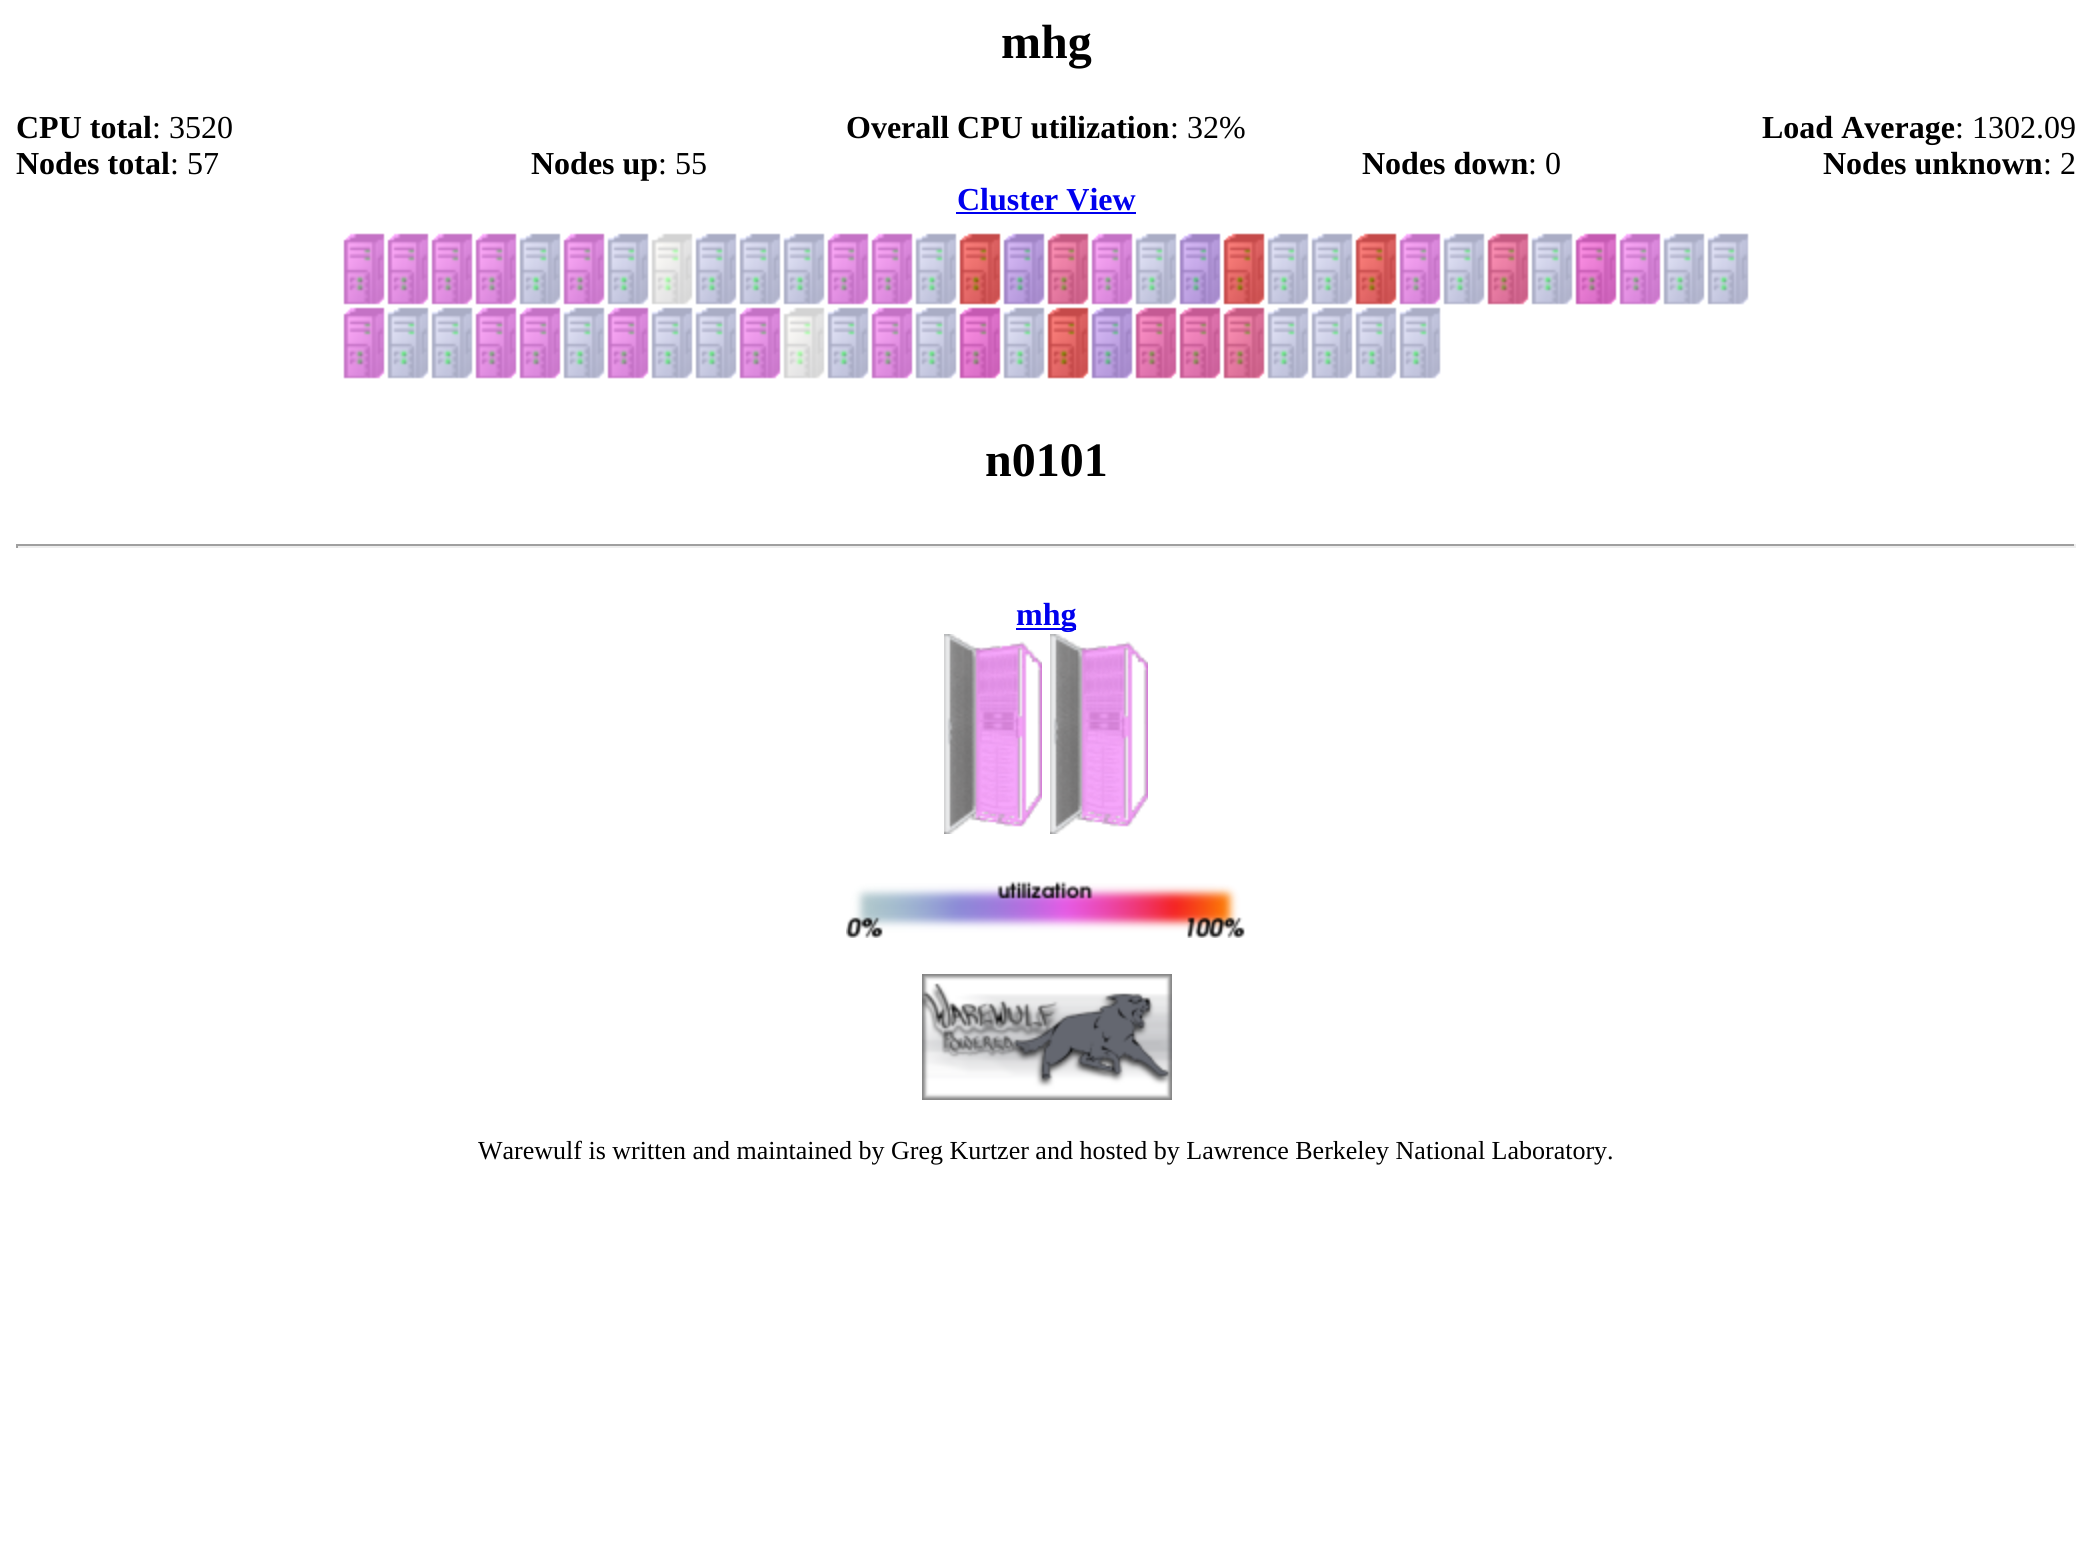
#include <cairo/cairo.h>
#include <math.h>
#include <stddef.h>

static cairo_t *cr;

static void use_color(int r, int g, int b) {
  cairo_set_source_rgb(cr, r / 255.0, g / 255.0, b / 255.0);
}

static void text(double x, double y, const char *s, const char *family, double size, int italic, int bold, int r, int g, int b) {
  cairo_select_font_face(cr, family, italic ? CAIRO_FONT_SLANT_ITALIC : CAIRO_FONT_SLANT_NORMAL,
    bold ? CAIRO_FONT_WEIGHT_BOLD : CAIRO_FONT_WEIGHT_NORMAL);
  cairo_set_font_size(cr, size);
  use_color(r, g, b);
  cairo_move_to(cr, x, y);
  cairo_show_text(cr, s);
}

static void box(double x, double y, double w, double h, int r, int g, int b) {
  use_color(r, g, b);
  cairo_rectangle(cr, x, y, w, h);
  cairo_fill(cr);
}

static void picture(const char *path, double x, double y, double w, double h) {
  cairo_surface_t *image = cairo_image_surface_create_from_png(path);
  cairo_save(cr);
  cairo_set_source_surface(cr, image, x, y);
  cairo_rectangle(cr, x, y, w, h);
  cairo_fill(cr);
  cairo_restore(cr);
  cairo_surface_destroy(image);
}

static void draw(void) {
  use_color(255, 255, 255);
  cairo_paint(cr);
  box(956, 212, 180, 2, 0, 0, 238);
  picture("img_01.png", 343, 233, 42, 72);
  picture("img_01.png", 387, 233, 42, 72);
  picture("img_01.png", 431, 233, 42, 72);
  picture("img_01.png", 475, 233, 42, 72);
  picture("img_02.png", 519, 233, 42, 72);
  picture("img_01.png", 563, 233, 42, 72);
  picture("img_02.png", 607, 233, 42, 72);
  picture("img_03.png", 651, 233, 42, 72);
  picture("img_02.png", 695, 233, 42, 72);
  picture("img_02.png", 739, 233, 42, 72);
  picture("img_02.png", 783, 233, 42, 72);
  picture("img_01.png", 827, 233, 42, 72);
  picture("img_01.png", 871, 233, 42, 72);
  picture("img_02.png", 915, 233, 42, 72);
  picture("img_04.png", 959, 233, 42, 72);
  picture("img_05.png", 1003, 233, 42, 72);
  picture("img_06.png", 1047, 233, 42, 72);
  picture("img_01.png", 1091, 233, 42, 72);
  picture("img_02.png", 1135, 233, 42, 72);
  picture("img_05.png", 1179, 233, 42, 72);
  picture("img_04.png", 1223, 233, 42, 72);
  picture("img_02.png", 1267, 233, 42, 72);
  picture("img_02.png", 1311, 233, 42, 72);
  picture("img_04.png", 1355, 233, 42, 72);
  picture("img_01.png", 1399, 233, 42, 72);
  picture("img_02.png", 1443, 233, 42, 72);
  picture("img_06.png", 1487, 233, 42, 72);
  picture("img_02.png", 1531, 233, 42, 72);
  picture("img_07.png", 1575, 233, 42, 72);
  picture("img_01.png", 1619, 233, 42, 72);
  picture("img_02.png", 1663, 233, 42, 72);
  picture("img_02.png", 1707, 233, 42, 72);
  picture("img_01.png", 343, 307, 42, 72);
  picture("img_02.png", 387, 307, 42, 72);
  picture("img_02.png", 431, 307, 42, 72);
  picture("img_01.png", 475, 307, 42, 72);
  picture("img_01.png", 519, 307, 42, 72);
  picture("img_02.png", 563, 307, 42, 72);
  picture("img_01.png", 607, 307, 42, 72);
  picture("img_02.png", 651, 307, 42, 72);
  picture("img_02.png", 695, 307, 42, 72);
  picture("img_01.png", 739, 307, 42, 72);
  picture("img_03.png", 783, 307, 42, 72);
  picture("img_02.png", 827, 307, 42, 72);
  picture("img_01.png", 871, 307, 42, 72);
  picture("img_02.png", 915, 307, 42, 72);
  picture("img_07.png", 959, 307, 42, 72);
  picture("img_02.png", 1003, 307, 42, 72);
  picture("img_04.png", 1047, 307, 42, 72);
  picture("img_05.png", 1091, 307, 42, 72);
  picture("img_08.png", 1135, 307, 42, 72);
  picture("img_08.png", 1179, 307, 42, 72);
  picture("img_06.png", 1223, 307, 42, 72);
  picture("img_02.png", 1267, 307, 42, 72);
  picture("img_02.png", 1311, 307, 42, 72);
  picture("img_02.png", 1355, 307, 42, 72);
  picture("img_02.png", 1399, 307, 42, 72);
  box(16, 544, 2060, 2, 159, 159, 159);
  box(2074, 544, 2, 4, 238, 238, 238);
  box(16, 546, 2060, 2, 238, 238, 238);
  box(16, 544, 2, 4, 159, 159, 159);
  box(1016, 628, 60, 2, 0, 0, 238);
  picture("img_09.png", 944, 634, 98, 200);
  picture("img_09.png", 1050, 634, 98, 200);
  picture("img_10.png", 846, 881, 399, 57);
  picture("img_11.png", 922, 974, 250, 126);
  text(1001, 58, "mhg", "Liberation Serif", 48, 0, 1, 0, 0, 0);
  text(16, 138, "CPU total", "Liberation Serif", 32, 0, 1, 0, 0, 0);
  text(152, 138, ": 3520", "Liberation Serif", 32, 0, 0, 0, 0, 0);
  text(846, 138, "Overall CPU utilization", "Liberation Serif", 32, 0, 1, 0, 0, 0);
  text(1170, 138, ": 32%", "Liberation Serif", 32, 0, 0, 0, 0, 0);
  text(1762, 138, "Load Average", "Liberation Serif", 32, 0, 1, 0, 0, 0);
  text(1955, 138, ": 1302.09", "Liberation Serif", 32, 0, 0, 0, 0, 0);
  text(16, 174, "Nodes total", "Liberation Serif", 32, 0, 1, 0, 0, 0);
  text(170, 174, ": 57", "Liberation Serif", 32, 0, 0, 0, 0, 0);
  text(531, 174, "Nodes up", "Liberation Serif", 32, 0, 1, 0, 0, 0);
  text(658, 174, ": 55", "Liberation Serif", 32, 0, 0, 0, 0, 0);
  text(1362, 174, "Nodes down", "Liberation Serif", 32, 0, 1, 0, 0, 0);
  text(1528, 174, ": 0", "Liberation Serif", 32, 0, 0, 0, 0, 0);
  text(1823, 174, "Nodes unknown", "Liberation Serif", 32, 0, 1, 0, 0, 0);
  text(2043, 174, ": 2", "Liberation Serif", 32, 0, 0, 0, 0, 0);
  text(957, 210, "Cluster View", "Liberation Serif", 32, 0, 1, 0, 0, 238);
  text(985, 476, "n0101", "Liberation Serif", 48, 0, 1, 0, 0, 0);
  text(1016, 625, "mhg", "Liberation Serif", 32, 0, 1, 0, 0, 238);
  text(478, 1159, "Warewulf is written and maintained by Greg Kurtzer and hosted by Lawrence Berkeley National Laboratory.", "Liberation Serif", 26, 0, 0, 0, 0, 0);
}

int main(void) {
  cairo_surface_t *surface = cairo_image_surface_create(CAIRO_FORMAT_RGB24, 2092, 1558);
  cr = cairo_create(surface);
  cairo_font_options_t *options = cairo_font_options_create();
  cairo_font_options_set_hint_metrics(options, CAIRO_HINT_METRICS_OFF);
  cairo_font_options_set_hint_style(options, CAIRO_HINT_STYLE_NONE);
  cairo_set_font_options(cr, options);
  cairo_set_miter_limit(cr, 4);
  draw();
  cairo_surface_write_to_png(surface, "out.png");
  cairo_font_options_destroy(options);
  cairo_destroy(cr);
  cairo_surface_destroy(surface);
  return 0;
}
